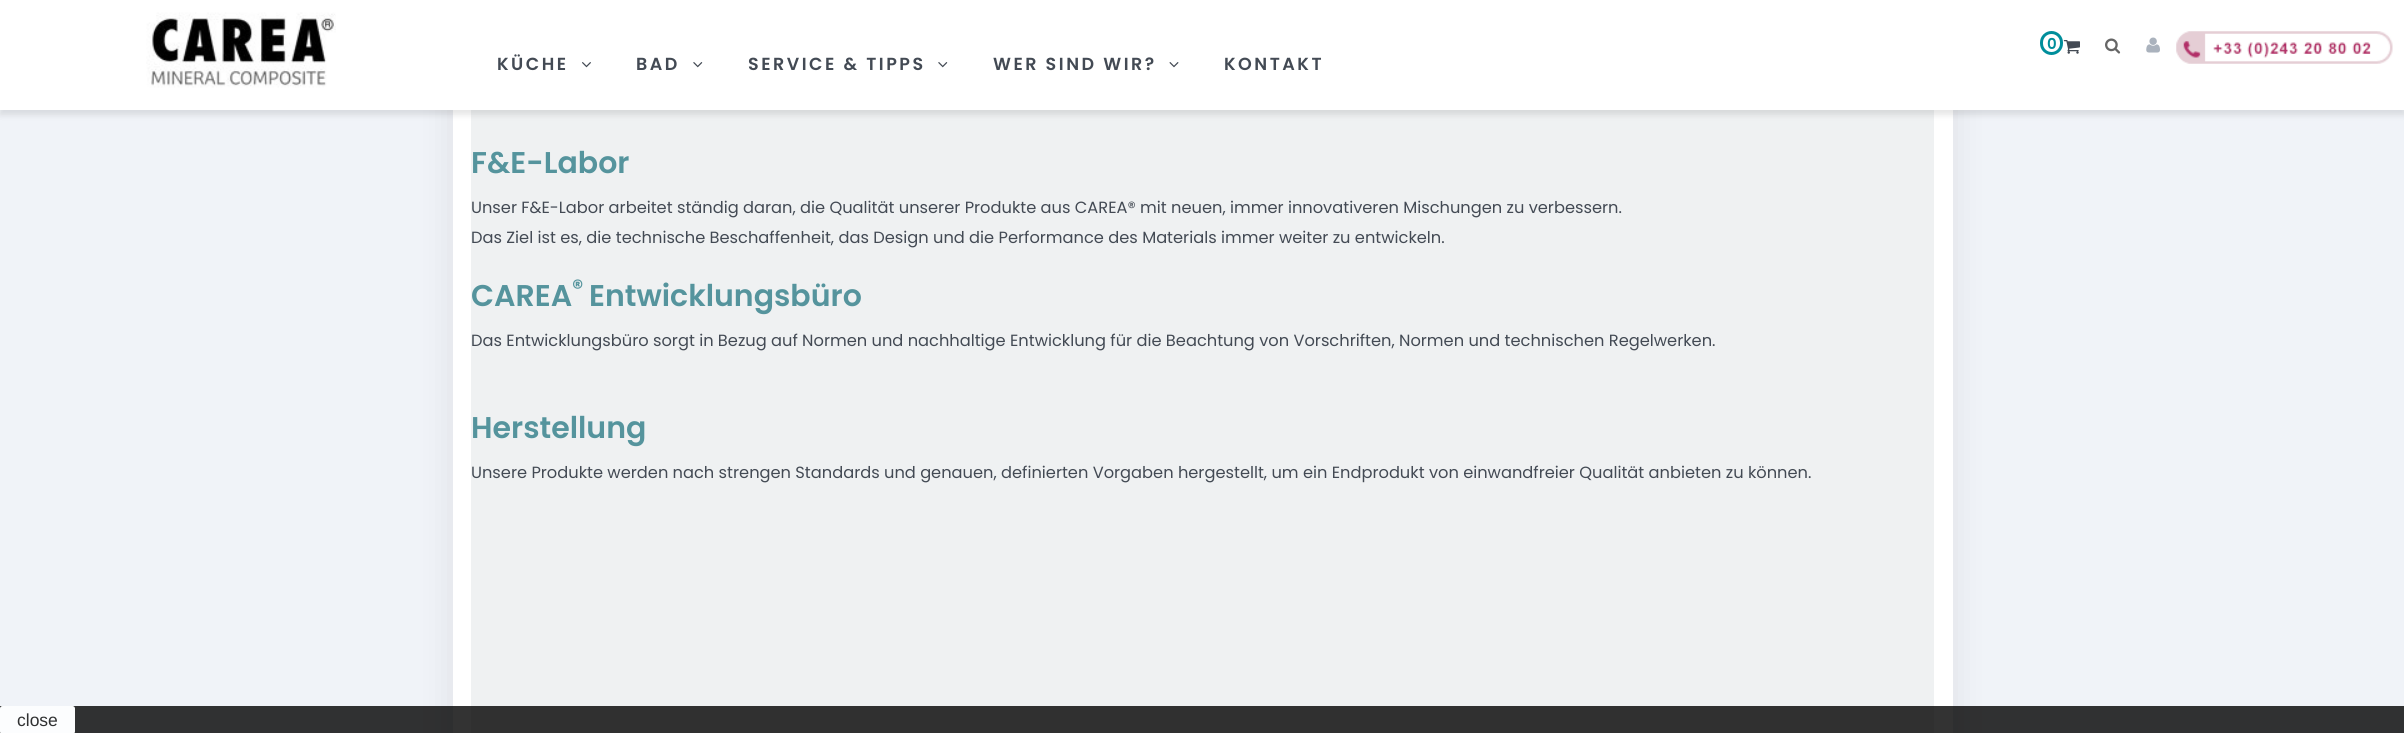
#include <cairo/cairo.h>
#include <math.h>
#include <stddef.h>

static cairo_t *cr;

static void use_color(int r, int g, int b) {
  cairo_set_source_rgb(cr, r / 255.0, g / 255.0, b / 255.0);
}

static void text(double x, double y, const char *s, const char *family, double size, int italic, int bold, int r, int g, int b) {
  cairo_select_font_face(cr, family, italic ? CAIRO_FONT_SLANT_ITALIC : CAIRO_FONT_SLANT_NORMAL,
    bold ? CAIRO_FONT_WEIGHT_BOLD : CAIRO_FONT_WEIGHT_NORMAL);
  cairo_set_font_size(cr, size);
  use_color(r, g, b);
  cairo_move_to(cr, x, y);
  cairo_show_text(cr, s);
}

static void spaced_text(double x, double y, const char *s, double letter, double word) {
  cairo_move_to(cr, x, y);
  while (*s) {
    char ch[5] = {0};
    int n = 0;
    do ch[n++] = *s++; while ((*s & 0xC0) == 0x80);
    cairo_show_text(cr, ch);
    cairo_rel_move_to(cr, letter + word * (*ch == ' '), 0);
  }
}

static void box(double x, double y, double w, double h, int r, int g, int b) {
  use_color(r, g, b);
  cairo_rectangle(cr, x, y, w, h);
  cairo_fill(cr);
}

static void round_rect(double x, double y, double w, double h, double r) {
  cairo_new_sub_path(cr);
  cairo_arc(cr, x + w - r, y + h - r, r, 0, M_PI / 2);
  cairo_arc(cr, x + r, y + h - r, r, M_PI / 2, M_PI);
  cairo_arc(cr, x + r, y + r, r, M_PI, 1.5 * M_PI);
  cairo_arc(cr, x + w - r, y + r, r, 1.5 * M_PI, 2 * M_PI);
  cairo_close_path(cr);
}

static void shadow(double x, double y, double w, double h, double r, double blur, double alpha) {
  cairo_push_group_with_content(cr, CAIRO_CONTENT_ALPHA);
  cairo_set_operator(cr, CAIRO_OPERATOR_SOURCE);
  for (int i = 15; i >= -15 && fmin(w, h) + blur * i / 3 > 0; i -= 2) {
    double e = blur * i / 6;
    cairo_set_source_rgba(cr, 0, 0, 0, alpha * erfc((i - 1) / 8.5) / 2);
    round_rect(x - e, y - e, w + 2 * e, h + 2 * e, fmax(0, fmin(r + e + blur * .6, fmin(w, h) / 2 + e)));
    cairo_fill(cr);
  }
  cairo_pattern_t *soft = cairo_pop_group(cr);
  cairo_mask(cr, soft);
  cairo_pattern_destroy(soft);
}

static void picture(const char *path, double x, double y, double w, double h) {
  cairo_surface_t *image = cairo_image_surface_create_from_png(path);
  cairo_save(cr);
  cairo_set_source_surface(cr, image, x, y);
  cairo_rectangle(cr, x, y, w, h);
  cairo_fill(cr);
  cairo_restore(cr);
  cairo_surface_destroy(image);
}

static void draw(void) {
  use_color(240, 243, 248);
  cairo_paint(cr);
  use_color(0, 0, 0);
  shadow(456, -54, 1493, 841, 0, 18, 0.1);
  box(453, 110, 1500, 623, 255, 255, 255);
  box(471, 110, 1463, 623, 239, 241, 242);
  use_color(0, 0, 0);
  shadow(0, 5, 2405, 110, 0, 3, 0.1);
  box(0, 0, 2404, 110, 255, 255, 255);
  picture("img_01.png", 146, 12, 190, 76);
  round_rect(2041.5, 32.5, 20, 21, 10);
  use_color(0, 142, 155);
  cairo_set_line_width(cr, 3);
  cairo_stroke(cr);
  picture("img_02.png", 2063, 40, 17, 14);
  picture("img_03.png", 2105, 38, 16, 16);
  picture("img_04.png", 2146, 37, 14, 16);
  picture("img_05.png", 2176, 31, 217, 33);
  picture("img_06.png", 582, 62, 9, 6);
  picture("img_07.png", 693, 62, 10, 6);
  picture("img_07.png", 938, 62, 10, 6);
  picture("img_08.png", 1169, 62, 10, 6);
  cairo_set_source_rgba(cr, 0, 0, 0, 0.8);
  cairo_rectangle(cr, 0, 706, 2404, 27);
  cairo_fill(cr);
  use_color(252, 253, 254);
  round_rect(0, 706, 75, 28, 2.5);
  cairo_fill(cr);
  text(2047, 49, "0", "Poppins SemiBold", 15, 0, 0, 0, 142, 155);
  cairo_set_font_size(cr, 17.5);
  use_color(67, 74, 84);
  spaced_text(497, 70, "KÜCHE", 2.5, 0);
  spaced_text(636, 70, "BAD", 2.5, 0);
  spaced_text(748, 70, "SERVICE & TIPPS", 2.5, 0);
  spaced_text(993, 70, "WER SIND WIR?", 2.5, 0);
  spaced_text(1224, 70, "KONTAKT", 2.5, 0);
  text(471, 173, "F&E-Labor", "Poppins SemiBold", 30, 0, 0, 85, 148, 157);
  text(471, 213, "Unser F&E-Labor arbeitet ständig daran, die Qualität unserer Produkte aus CAREA® mit neuen, immer innovativeren Mischungen zu verbessern.", "Poppins", 16.25, 0, 0, 67, 74, 84);
  text(471, 243, "Das Ziel ist es, die technische Beschaffenheit, das Design und die Performance des Materials immer weiter zu entwickeln.", "Poppins", 16.25, 0, 0, 67, 74, 84);
  text(471, 306, "CAREA", "Poppins SemiBold", 30, 0, 0, 85, 148, 157);
  text(572, 295, "®", "Poppins SemiBold", 22, 0, 0, 85, 148, 157);
  text(589, 306, "Entwicklungsbüro", "Poppins SemiBold", 30, 0, 0, 85, 148, 157);
  text(471, 346, "Das Entwicklungsbüro sorgt in Bezug auf Normen und nachhaltige Entwicklung für die Beachtung von Vorschriften, Normen und technischen Regelwerken.", "Poppins", 16.25, 0, 0, 67, 74, 84);
  text(471, 438, "Herstellung", "Poppins SemiBold", 30, 0, 0, 85, 148, 157);
  text(471, 478, "Unsere Produkte werden nach strengen Standards und genauen, definierten Vorgaben hergestellt, um ein Endprodukt von einwandfreier Qualität anbieten zu können.", "Poppins", 16.25, 0, 0, 67, 74, 84);
  text(17, 726, "close", "Liberation Sans", 17.5, 0, 0, 48, 49, 50);
}

int main(void) {
  cairo_surface_t *surface = cairo_image_surface_create(CAIRO_FORMAT_RGB24, 2404, 733);
  cr = cairo_create(surface);
  cairo_font_options_t *options = cairo_font_options_create();
  cairo_font_options_set_hint_metrics(options, CAIRO_HINT_METRICS_OFF);
  cairo_font_options_set_hint_style(options, CAIRO_HINT_STYLE_NONE);
  cairo_set_font_options(cr, options);
  cairo_set_miter_limit(cr, 4);
  draw();
  cairo_surface_write_to_png(surface, "out.png");
  cairo_font_options_destroy(options);
  cairo_destroy(cr);
  cairo_surface_destroy(surface);
  return 0;
}
